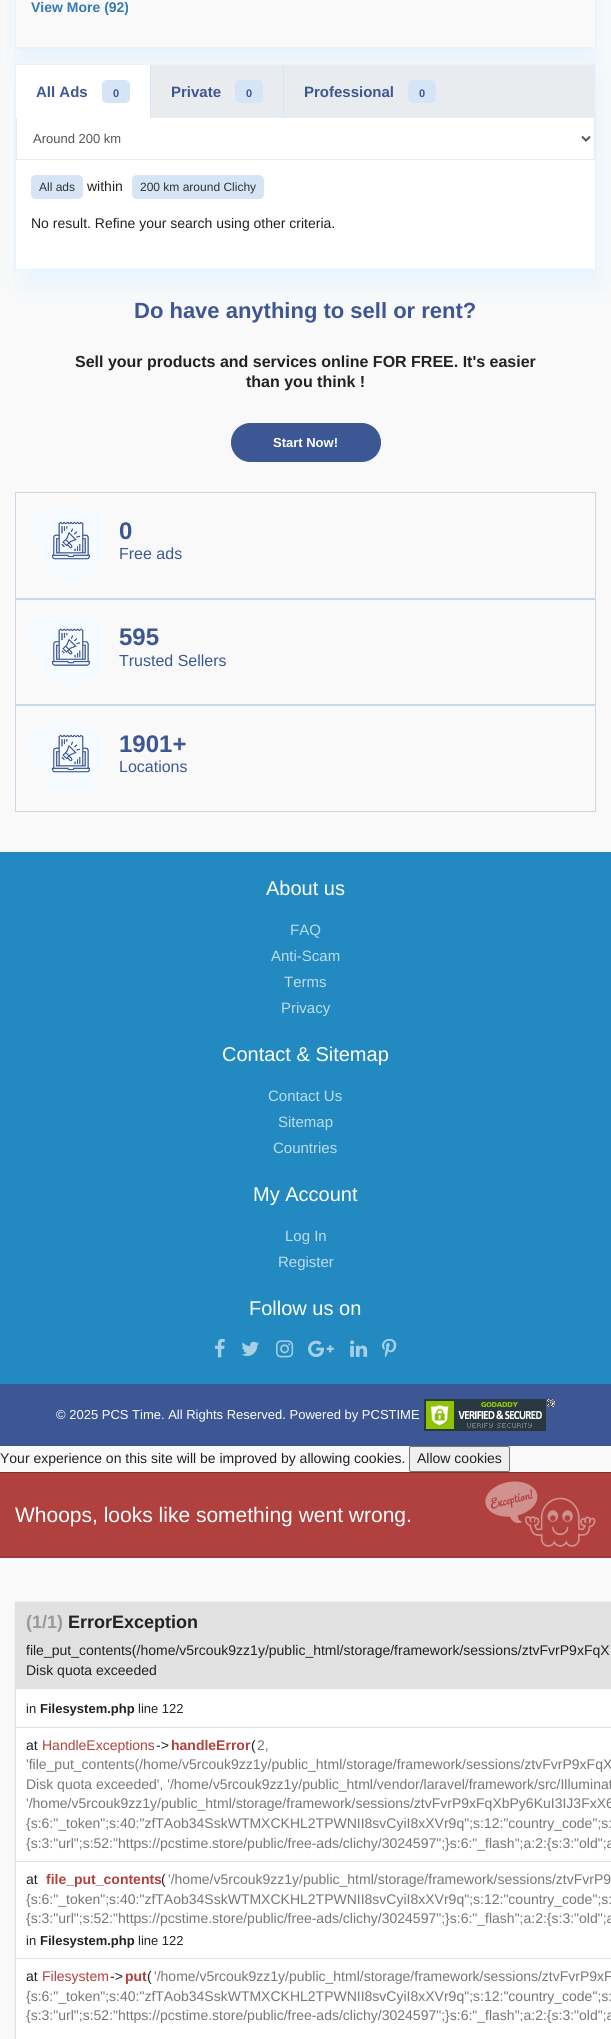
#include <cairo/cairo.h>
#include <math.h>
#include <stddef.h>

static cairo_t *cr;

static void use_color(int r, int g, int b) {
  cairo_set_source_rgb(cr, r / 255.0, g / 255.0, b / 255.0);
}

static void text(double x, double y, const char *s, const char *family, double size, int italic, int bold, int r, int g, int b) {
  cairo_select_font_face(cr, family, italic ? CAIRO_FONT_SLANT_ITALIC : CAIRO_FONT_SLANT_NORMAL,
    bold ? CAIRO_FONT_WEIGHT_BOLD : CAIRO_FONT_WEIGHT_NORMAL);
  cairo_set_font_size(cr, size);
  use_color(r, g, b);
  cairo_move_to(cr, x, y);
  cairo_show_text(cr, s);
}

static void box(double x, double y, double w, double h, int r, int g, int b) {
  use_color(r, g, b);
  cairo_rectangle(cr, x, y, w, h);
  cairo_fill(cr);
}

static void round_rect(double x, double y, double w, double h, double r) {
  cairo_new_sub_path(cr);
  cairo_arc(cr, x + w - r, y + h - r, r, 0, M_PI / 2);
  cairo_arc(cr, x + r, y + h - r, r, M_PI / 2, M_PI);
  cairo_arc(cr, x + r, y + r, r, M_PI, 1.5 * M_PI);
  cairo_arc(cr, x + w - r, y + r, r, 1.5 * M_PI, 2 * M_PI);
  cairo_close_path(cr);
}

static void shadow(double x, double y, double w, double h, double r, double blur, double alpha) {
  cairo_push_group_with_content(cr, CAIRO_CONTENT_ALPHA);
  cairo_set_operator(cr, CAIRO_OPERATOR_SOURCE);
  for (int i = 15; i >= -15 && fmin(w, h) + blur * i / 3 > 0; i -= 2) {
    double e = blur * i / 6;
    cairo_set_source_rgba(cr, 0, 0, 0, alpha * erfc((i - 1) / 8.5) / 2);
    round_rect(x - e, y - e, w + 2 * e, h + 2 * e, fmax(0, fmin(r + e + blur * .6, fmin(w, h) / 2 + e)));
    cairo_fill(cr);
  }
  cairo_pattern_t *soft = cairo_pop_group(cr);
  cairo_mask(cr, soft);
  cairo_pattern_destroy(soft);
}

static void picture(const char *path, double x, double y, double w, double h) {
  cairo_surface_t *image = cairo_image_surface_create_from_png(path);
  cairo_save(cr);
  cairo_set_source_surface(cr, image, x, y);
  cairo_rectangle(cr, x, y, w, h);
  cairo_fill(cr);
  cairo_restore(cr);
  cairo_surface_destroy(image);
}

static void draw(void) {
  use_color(249, 249, 249);
  cairo_paint(cr);
  cairo_save(cr);
  cairo_set_fill_rule(cr, CAIRO_FILL_RULE_EVEN_ODD);
  cairo_new_path(cr);
  cairo_move_to(cr, 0, 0);
  cairo_line_to(cr, 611, 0);
  cairo_line_to(cr, 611, 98);
  cairo_line_to(cr, 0, 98);
  cairo_close_path(cr);
  cairo_move_to(cr, 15, -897);
  cairo_line_to(cr, 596, -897);
  cairo_line_to(cr, 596, 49);
  cairo_line_to(cr, 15, 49);
  cairo_close_path(cr);
  cairo_clip(cr);
  use_color(228, 243, 255);
  shadow(15, -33, 581, 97, 0, 11, 0.75);
  cairo_restore(cr);
  cairo_rectangle(cr, 15.5, -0.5, 580, 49);
  use_color(230, 243, 255);
  cairo_set_line_width(cr, 1);
  cairo_stroke(cr);
  box(16, 47, 579, 1, 242, 242, 242);
  use_color(228, 243, 255);
  shadow(22, 79, 581, 206, 0, 11, 0.75);
  box(16, 160, 579, 109, 255, 255, 255);
  cairo_rectangle(cr, 15.5, 64.5, 580, 205);
  use_color(228, 243, 255);
  cairo_stroke(cr);
  box(151, 65, 444, 52, 233, 236, 239);
  use_color(255, 255, 255);
  cairo_rectangle(cr, 16.5, 117.5, 578, 42);
  cairo_fill_preserve(cr);
  use_color(233, 236, 239);
  cairo_stroke(cr);
  box(16, 65, 134, 53, 255, 255, 255);
  use_color(213, 229, 245);
  round_rect(102, 80, 28, 23, 5);
  cairo_fill(cr);
  box(150, 65, 1, 53, 213, 229, 245);
  round_rect(235, 80, 28, 23, 5);
  cairo_fill(cr);
  box(283, 65, 1, 53, 213, 229, 245);
  round_rect(408, 80, 28, 23, 5);
  cairo_fill(cr);
  cairo_new_path(cr);
  cairo_move_to(cr, 582, 136.5);
  cairo_line_to(cr, 586, 140.5);
  cairo_line_to(cr, 590, 136.5);
  use_color(85, 85, 85);
  cairo_set_line_width(cr, 2);
  cairo_stroke(cr);
  use_color(213, 229, 245);
  round_rect(31, 175, 52, 24, 5);
  cairo_fill(cr);
  round_rect(132, 175, 132, 24, 5);
  cairo_fill(cr);
  use_color(61, 87, 148);
  round_rect(231.5, 423.5, 149, 38, 19);
  cairo_fill_preserve(cr);
  cairo_set_line_width(cr, 1);
  cairo_stroke(cr);
  cairo_rectangle(cr, 15.5, 492.5, 580, 106);
  use_color(200, 216, 231);
  cairo_stroke(cr);
  picture("img_01.png", 27, 508, 82, 75);
  cairo_rectangle(cr, 15.5, 599.5, 580, 105);
  cairo_stroke(cr);
  picture("img_02.png", 27, 615, 82, 74);
  cairo_rectangle(cr, 15.5, 705.5, 580, 106);
  cairo_stroke(cr);
  picture("img_01.png", 27, 721, 82, 75);
  box(0, 852, 611, 532, 34, 138, 193);
  picture("img_03.png", 215, 1338, 10, 20);
  picture("img_04.png", 241, 1341, 18, 15);
  picture("img_05.png", 276, 1340, 18, 18);
  picture("img_06.png", 308, 1340, 26, 17);
  picture("img_07.png", 350, 1340, 18, 17);
  picture("img_08.png", 382, 1338, 15, 20);
  box(0, 1384, 611, 62, 61, 87, 148);
  picture("img_09.png", 424, 1399, 131, 32);
  use_color(239, 239, 239);
  round_rect(409.5, 1446.5, 100, 25, 1.5);
  cairo_fill_preserve(cr);
  use_color(118, 118, 118);
  cairo_stroke(cr);
  box(0, 1473, 611, 83, 176, 65, 62);
  box(0, 1472, 611, 1, 123, 46, 43);
  box(0, 1556, 611, 2, 158, 59, 56);
  picture("img_10.png", 485, 1481, 111, 66);
  use_color(128, 128, 128);
  shadow(15, 1602, 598, 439, 0, 0.5, 0.2);
  box(16, 1689, 595, 350, 255, 255, 255);
  box(15, 1602, 596, 1, 224, 224, 224);
  box(15, 1602, 1, 437, 224, 224, 224);
  box(15, 1727, 596, 1, 224, 224, 224);
  box(15, 1861, 596, 1, 224, 224, 224);
  box(15, 1958, 596, 1, 224, 224, 224);
  text(31, 12, "View More (92)", "Liberation Sans", 14, 0, 1, 51, 122, 183);
  text(36, 97, "All Ads", "Liberation Sans", 15, 0, 1, 61, 87, 148);
  text(113, 97, "0", "Liberation Sans", 11, 0, 1, 61, 87, 148);
  text(171, 97, "Private", "Liberation Sans", 15, 0, 1, 61, 87, 148);
  text(246, 97, "0", "Liberation Sans", 11, 0, 1, 61, 87, 148);
  text(304, 97, "Professional", "Liberation Sans", 15, 0, 1, 61, 87, 148);
  text(419, 97, "0", "Liberation Sans", 11, 0, 1, 61, 87, 148);
  text(33, 143, "Around 200 km", "Liberation Sans", 13, 0, 0, 85, 85, 85);
  text(39, 191, "All ads", "Liberation Sans", 12, 0, 0, 49, 49, 49);
  text(87, 191, "within", "Liberation Sans", 14, 0, 0, 34, 34, 34);
  text(140, 191, "200 km around Clichy", "Liberation Sans", 12, 0, 0, 49, 49, 49);
  text(31, 228, "No result. Refine your search using other criteria.", "Liberation Sans", 14, 0, 0, 34, 34, 34);
  text(134, 318, "Do have anything to sell or rent?", "Liberation Sans", 22, 0, 1, 61, 87, 148);
  text(75, 367, "Sell your products and services online FOR FREE. It's easier", "Liberation Sans", 16, 0, 1, 34, 34, 34);
  text(246, 387, "than you think !", "Liberation Sans", 16, 0, 1, 34, 34, 34);
  text(273, 447, "Start Now!", "Liberation Sans", 13, 0, 1, 255, 255, 255);
  text(119, 539, "0", "Liberation Sans", 24, 0, 1, 61, 87, 148);
  text(119, 559, "Free ads", "Liberation Sans", 16, 0, 0, 61, 87, 148);
  text(119, 645, "595", "Liberation Sans", 24, 0, 1, 61, 87, 148);
  text(119, 666, "Trusted Sellers", "Liberation Sans", 16, 0, 0, 61, 87, 148);
  text(119, 752, "1901+", "Liberation Sans", 24, 0, 1, 61, 87, 148);
  text(119, 772, "Locations", "Liberation Sans", 16, 0, 0, 61, 87, 148);
  text(266, 895, "About us", "Liberation Sans", 20, 0, 0, 255, 255, 255);
  text(290, 935, "FAQ", "Liberation Sans", 15, 0, 0, 189, 220, 236);
  text(271, 961, "Anti-Scam", "Liberation Sans", 15, 0, 0, 189, 220, 236);
  text(284, 987, "Terms", "Liberation Sans", 15, 0, 0, 189, 220, 236);
  text(281, 1013, "Privacy", "Liberation Sans", 15, 0, 0, 189, 220, 236);
  text(222, 1061, "Contact & Sitemap", "Liberation Sans", 20, 0, 0, 255, 255, 255);
  text(268, 1101, "Contact Us", "Liberation Sans", 15, 0, 0, 189, 220, 236);
  text(278, 1127, "Sitemap", "Liberation Sans", 15, 0, 0, 189, 220, 236);
  text(273, 1153, "Countries", "Liberation Sans", 15, 0, 0, 189, 220, 236);
  text(253, 1201, "My Account", "Liberation Sans", 20, 0, 0, 255, 255, 255);
  text(285, 1241, "Log In", "Liberation Sans", 15, 0, 0, 189, 220, 236);
  text(278, 1267, "Register", "Liberation Sans", 15, 0, 0, 189, 220, 236);
  text(249, 1315, "Follow us on", "Liberation Sans", 20, 0, 0, 255, 255, 255);
  text(56, 1419, "© 2025 PCS Time. All Rights Reserved. Powered by PCSTIME", "Liberation Sans", 13, 0, 0, 255, 255, 255);
  text(0, 1463, "Your experience on this site will be improved by allowing cookies.", "Liberation Sans", 14, 0, 0, 34, 34, 34);
  text(417, 1463, "Allow cookies", "Liberation Sans", 14, 0, 0, 34, 34, 34);
  text(15, 1522, "Whoops, looks like something went wrong.", "Liberation Sans", 21, 0, 0, 255, 255, 255);
  text(26, 1628, "(1/1)", "Liberation Sans", 18, 0, 1, 153, 153, 153);
  text(68, 1628, "ErrorException", "Liberation Sans", 18, 0, 1, 34, 34, 34);
  text(26, 1655, "file_put_contents(/home/v5rcouk9zz1y/public_html/storage/framework/sessions/ztvFvrP9xFqX", "Liberation Sans", 14, 0, 0, 34, 34, 34);
  text(26, 1675, "Disk quota exceeded", "Liberation Sans", 14, 0, 0, 34, 34, 34);
  text(26, 1713, "in", "Liberation Sans", 13, 0, 0, 34, 34, 34);
  text(40, 1713, "Filesystem.php", "Liberation Sans", 13, 0, 1, 34, 34, 34);
  text(138, 1713, "line 122", "Liberation Sans", 13, 0, 0, 34, 34, 34);
  text(26, 1750, "at", "Liberation Sans", 14, 0, 0, 34, 34, 34);
  text(42, 1750, "HandleExceptions", "Liberation Sans", 14, 0, 0, 176, 65, 62);
  text(156, 1750, "->", "Liberation Sans", 14, 0, 0, 34, 34, 34);
  text(171, 1750, "handleError", "Liberation Sans", 14, 0, 1, 176, 65, 62);
  text(251, 1750, "(", "Liberation Sans", 14, 0, 0, 34, 34, 34);
  text(257, 1750, "2,", "Liberation Sans", 14, 0, 0, 119, 119, 119);
  text(26, 1769, "'file_put_contents(/home/v5rcouk9zz1y/public_html/storage/framework/sessions/ztvFvrP9xFqX", "Liberation Sans", 14, 0, 0, 119, 119, 119);
  text(26, 1789, "Disk quota exceeded', '/home/v5rcouk9zz1y/public_html/vendor/laravel/framework/src/Illuminat", "Liberation Sans", 14, 0, 0, 119, 119, 119);
  text(26, 1808, "'/home/v5rcouk9zz1y/public_html/storage/framework/sessions/ztvFvrP9xFqXbPy6KuI3IJ3FxX6", "Liberation Sans", 14, 0, 0, 119, 119, 119);
  text(26, 1828, "{s:6:\"_token\";s:40:\"zfTAob34SskWTMXCKHL2TPWNII8svCyiI8xXVr9q\";s:12:\"country_code\";s:", "Liberation Sans", 14, 0, 0, 119, 119, 119);
  text(26, 1848, "{s:3:\"url\";s:52:\"https://pcstime.store/public/free-ads/clichy/3024597\";}s:6:\"_flash\";a:2:{s:3:\"old\";a", "Liberation Sans", 14, 0, 0, 119, 119, 119);
  text(26, 1884, "at", "Liberation Sans", 14, 0, 0, 34, 34, 34);
  text(46, 1884, "file_put_contents", "Liberation Sans", 14, 0, 1, 176, 65, 62);
  text(161, 1884, "(", "Liberation Sans", 14, 0, 0, 34, 34, 34);
  text(168, 1884, "'/home/v5rcouk9zz1y/public_html/storage/framework/sessions/ztvFvrP9", "Liberation Sans", 14, 0, 0, 119, 119, 119);
  text(26, 1904, "{s:6:\"_token\";s:40:\"zfTAob34SskWTMXCKHL2TPWNII8svCyiI8xXVr9q\";s:12:\"country_code\";s:", "Liberation Sans", 14, 0, 0, 119, 119, 119);
  text(26, 1923, "{s:3:\"url\";s:52:\"https://pcstime.store/public/free-ads/clichy/3024597\";}s:6:\"_flash\";a:2:{s:3:\"old\";a", "Liberation Sans", 14, 0, 0, 119, 119, 119);
  text(26, 1945, "in", "Liberation Sans", 13, 0, 0, 34, 34, 34);
  text(40, 1945, "Filesystem.php", "Liberation Sans", 13, 0, 1, 34, 34, 34);
  text(138, 1945, "line 122", "Liberation Sans", 13, 0, 0, 34, 34, 34);
  text(26, 1981, "at", "Liberation Sans", 14, 0, 0, 34, 34, 34);
  text(42, 1981, "Filesystem", "Liberation Sans", 14, 0, 0, 176, 65, 62);
  text(110, 1981, "->", "Liberation Sans", 14, 0, 0, 34, 34, 34);
  text(125, 1981, "put", "Liberation Sans", 14, 0, 1, 176, 65, 62);
  text(147, 1981, "(", "Liberation Sans", 14, 0, 0, 34, 34, 34);
  text(154, 1981, "'/home/v5rcouk9zz1y/public_html/storage/framework/sessions/ztvFvrP9xF", "Liberation Sans", 14, 0, 0, 119, 119, 119);
  text(26, 2001, "{s:6:\"_token\";s:40:\"zfTAob34SskWTMXCKHL2TPWNII8svCyiI8xXVr9q\";s:12:\"country_code\";s:", "Liberation Sans", 14, 0, 0, 119, 119, 119);
  text(26, 2020, "{s:3:\"url\";s:52:\"https://pcstime.store/public/free-ads/clichy/3024597\";}s:6:\"_flash\";a:2:{s:3:\"old\";a", "Liberation Sans", 14, 0, 0, 119, 119, 119);
}

int main(void) {
  cairo_surface_t *surface = cairo_image_surface_create(CAIRO_FORMAT_RGB24, 611, 2039);
  cr = cairo_create(surface);
  cairo_font_options_t *options = cairo_font_options_create();
  cairo_font_options_set_hint_metrics(options, CAIRO_HINT_METRICS_OFF);
  cairo_font_options_set_hint_style(options, CAIRO_HINT_STYLE_NONE);
  cairo_set_font_options(cr, options);
  cairo_set_miter_limit(cr, 4);
  draw();
  cairo_surface_write_to_png(surface, "out.png");
  cairo_font_options_destroy(options);
  cairo_destroy(cr);
  cairo_surface_destroy(surface);
  return 0;
}
